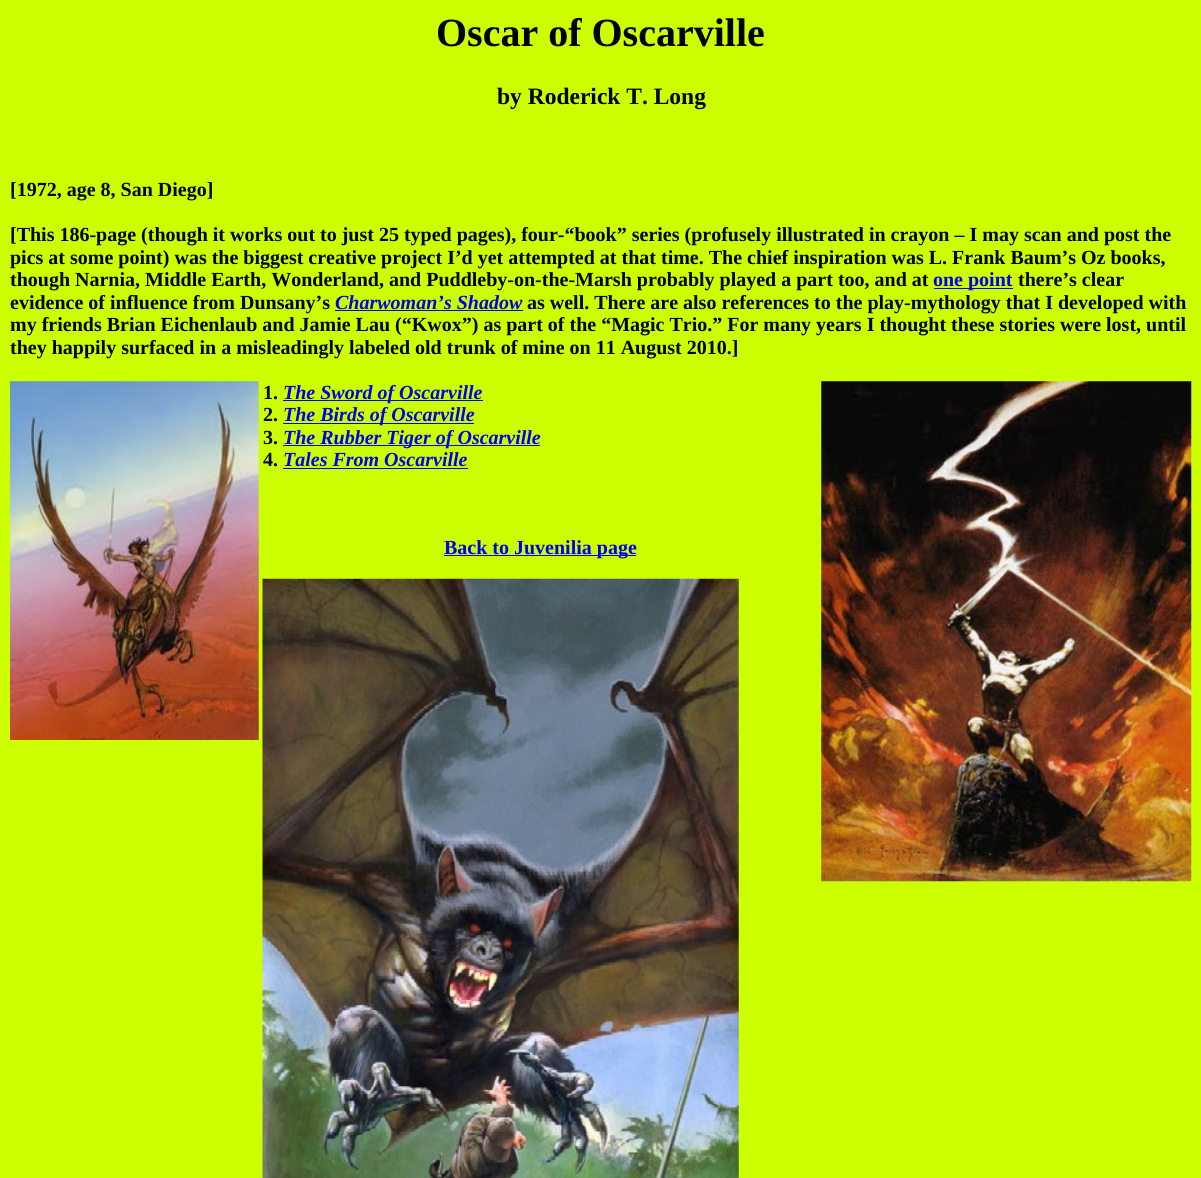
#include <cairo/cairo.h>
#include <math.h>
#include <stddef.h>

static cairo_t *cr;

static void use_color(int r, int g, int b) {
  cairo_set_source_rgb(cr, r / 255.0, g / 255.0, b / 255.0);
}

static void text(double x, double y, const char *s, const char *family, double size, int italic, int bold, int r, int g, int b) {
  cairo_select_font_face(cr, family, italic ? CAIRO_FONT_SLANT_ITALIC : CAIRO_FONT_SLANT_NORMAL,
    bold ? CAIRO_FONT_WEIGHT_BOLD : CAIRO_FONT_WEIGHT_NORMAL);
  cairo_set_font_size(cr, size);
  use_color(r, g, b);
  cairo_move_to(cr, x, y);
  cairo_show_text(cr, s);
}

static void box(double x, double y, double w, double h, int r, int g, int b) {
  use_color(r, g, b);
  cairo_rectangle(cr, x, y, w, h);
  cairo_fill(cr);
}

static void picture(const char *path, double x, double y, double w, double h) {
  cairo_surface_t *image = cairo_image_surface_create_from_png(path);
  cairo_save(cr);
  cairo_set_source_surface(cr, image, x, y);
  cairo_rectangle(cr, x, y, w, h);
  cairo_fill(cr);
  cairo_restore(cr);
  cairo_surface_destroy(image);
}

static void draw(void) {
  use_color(204, 255, 0);
  cairo_paint(cr);
  box(934, 288, 79, 1, 0, 0, 238);
  box(335, 310, 188, 1, 0, 0, 238);
  picture("img_01.png", 10, 381, 249, 359);
  box(283, 400, 200, 1, 0, 0, 238);
  picture("img_02.png", 821, 381, 371, 501);
  box(283, 423, 191, 1, 0, 0, 238);
  box(283, 445, 257, 1, 0, 0, 238);
  box(283, 468, 185, 1, 0, 0, 238);
  box(444, 555, 192, 1, 0, 0, 238);
  picture("img_03.png", 262, 578, 477, 600);
  text(436, 46, "Oscar of Oscarville", "Liberation Serif", 40, 0, 1, 0, 0, 0);
  text(497, 104, "by Roderick T. Long", "Liberation Serif", 23.5, 0, 1, 0, 0, 0);
  text(10, 196, "[1972, age 8, San Diego]", "Liberation Serif", 20, 0, 1, 0, 0, 0);
  text(10, 241, "[This 186-page (though it works out to just 25 typed pages), four-“book” series (profusely illustrated in crayon – I may scan and post the", "Liberation Serif", 20, 0, 1, 0, 0, 0);
  text(10, 264, "pics at some point) was the biggest creative project I’d yet attempted at that time. The chief inspiration was L. Frank Baum’s Oz books,", "Liberation Serif", 20, 0, 1, 0, 0, 0);
  text(10, 286, "though Narnia, Middle Earth, Wonderland, and Puddleby-on-the-Marsh probably played a part too, and at", "Liberation Serif", 20, 0, 1, 0, 0, 0);
  text(933, 286, "one point", "Liberation Serif", 20, 0, 1, 0, 0, 238);
  text(1018, 286, "there’s clear", "Liberation Serif", 20, 0, 1, 0, 0, 0);
  text(10, 309, "evidence of influence from Dunsany’s", "Liberation Serif", 20, 0, 1, 0, 0, 0);
  text(335, 309, "Charwoman’s Shadow", "Liberation Serif", 20, 1, 1, 0, 0, 238);
  text(527, 309, "as well. There are also references to the play-mythology that I developed with", "Liberation Serif", 20, 0, 1, 0, 0, 0);
  text(10, 331, "my friends Brian Eichenlaub and Jamie Lau (“Kwox”) as part of the “Magic Trio.” For many years I thought these stories were lost, until", "Liberation Serif", 20, 0, 1, 0, 0, 0);
  text(10, 354, "they happily surfaced in a misleadingly labeled old trunk of mine on 11 August 2010.]", "Liberation Serif", 20, 0, 1, 0, 0, 0);
  text(263, 399, "1.", "Liberation Serif", 20, 0, 1, 0, 0, 0);
  text(283, 399, "The Sword of Oscarville", "Liberation Serif", 20, 1, 1, 0, 0, 238);
  text(263, 421, "2.", "Liberation Serif", 20, 0, 1, 0, 0, 0);
  text(283, 421, "The Birds of Oscarville", "Liberation Serif", 20, 1, 1, 0, 0, 238);
  text(263, 444, "3.", "Liberation Serif", 20, 0, 1, 0, 0, 0);
  text(283, 444, "The Rubber Tiger of Oscarville", "Liberation Serif", 20, 1, 1, 0, 0, 238);
  text(263, 466, "4.", "Liberation Serif", 20, 0, 1, 0, 0, 0);
  text(283, 466, "Tales From Oscarville", "Liberation Serif", 20, 1, 1, 0, 0, 238);
  text(444, 554, "Back to Juvenilia page", "Liberation Serif", 20, 0, 1, 0, 0, 238);
}

int main(void) {
  cairo_surface_t *surface = cairo_image_surface_create(CAIRO_FORMAT_RGB24, 1201, 1178);
  cr = cairo_create(surface);
  cairo_font_options_t *options = cairo_font_options_create();
  cairo_font_options_set_hint_metrics(options, CAIRO_HINT_METRICS_OFF);
  cairo_font_options_set_hint_style(options, CAIRO_HINT_STYLE_NONE);
  cairo_set_font_options(cr, options);
  cairo_set_miter_limit(cr, 4);
  draw();
  cairo_surface_write_to_png(surface, "out.png");
  cairo_font_options_destroy(options);
  cairo_destroy(cr);
  cairo_surface_destroy(surface);
  return 0;
}
